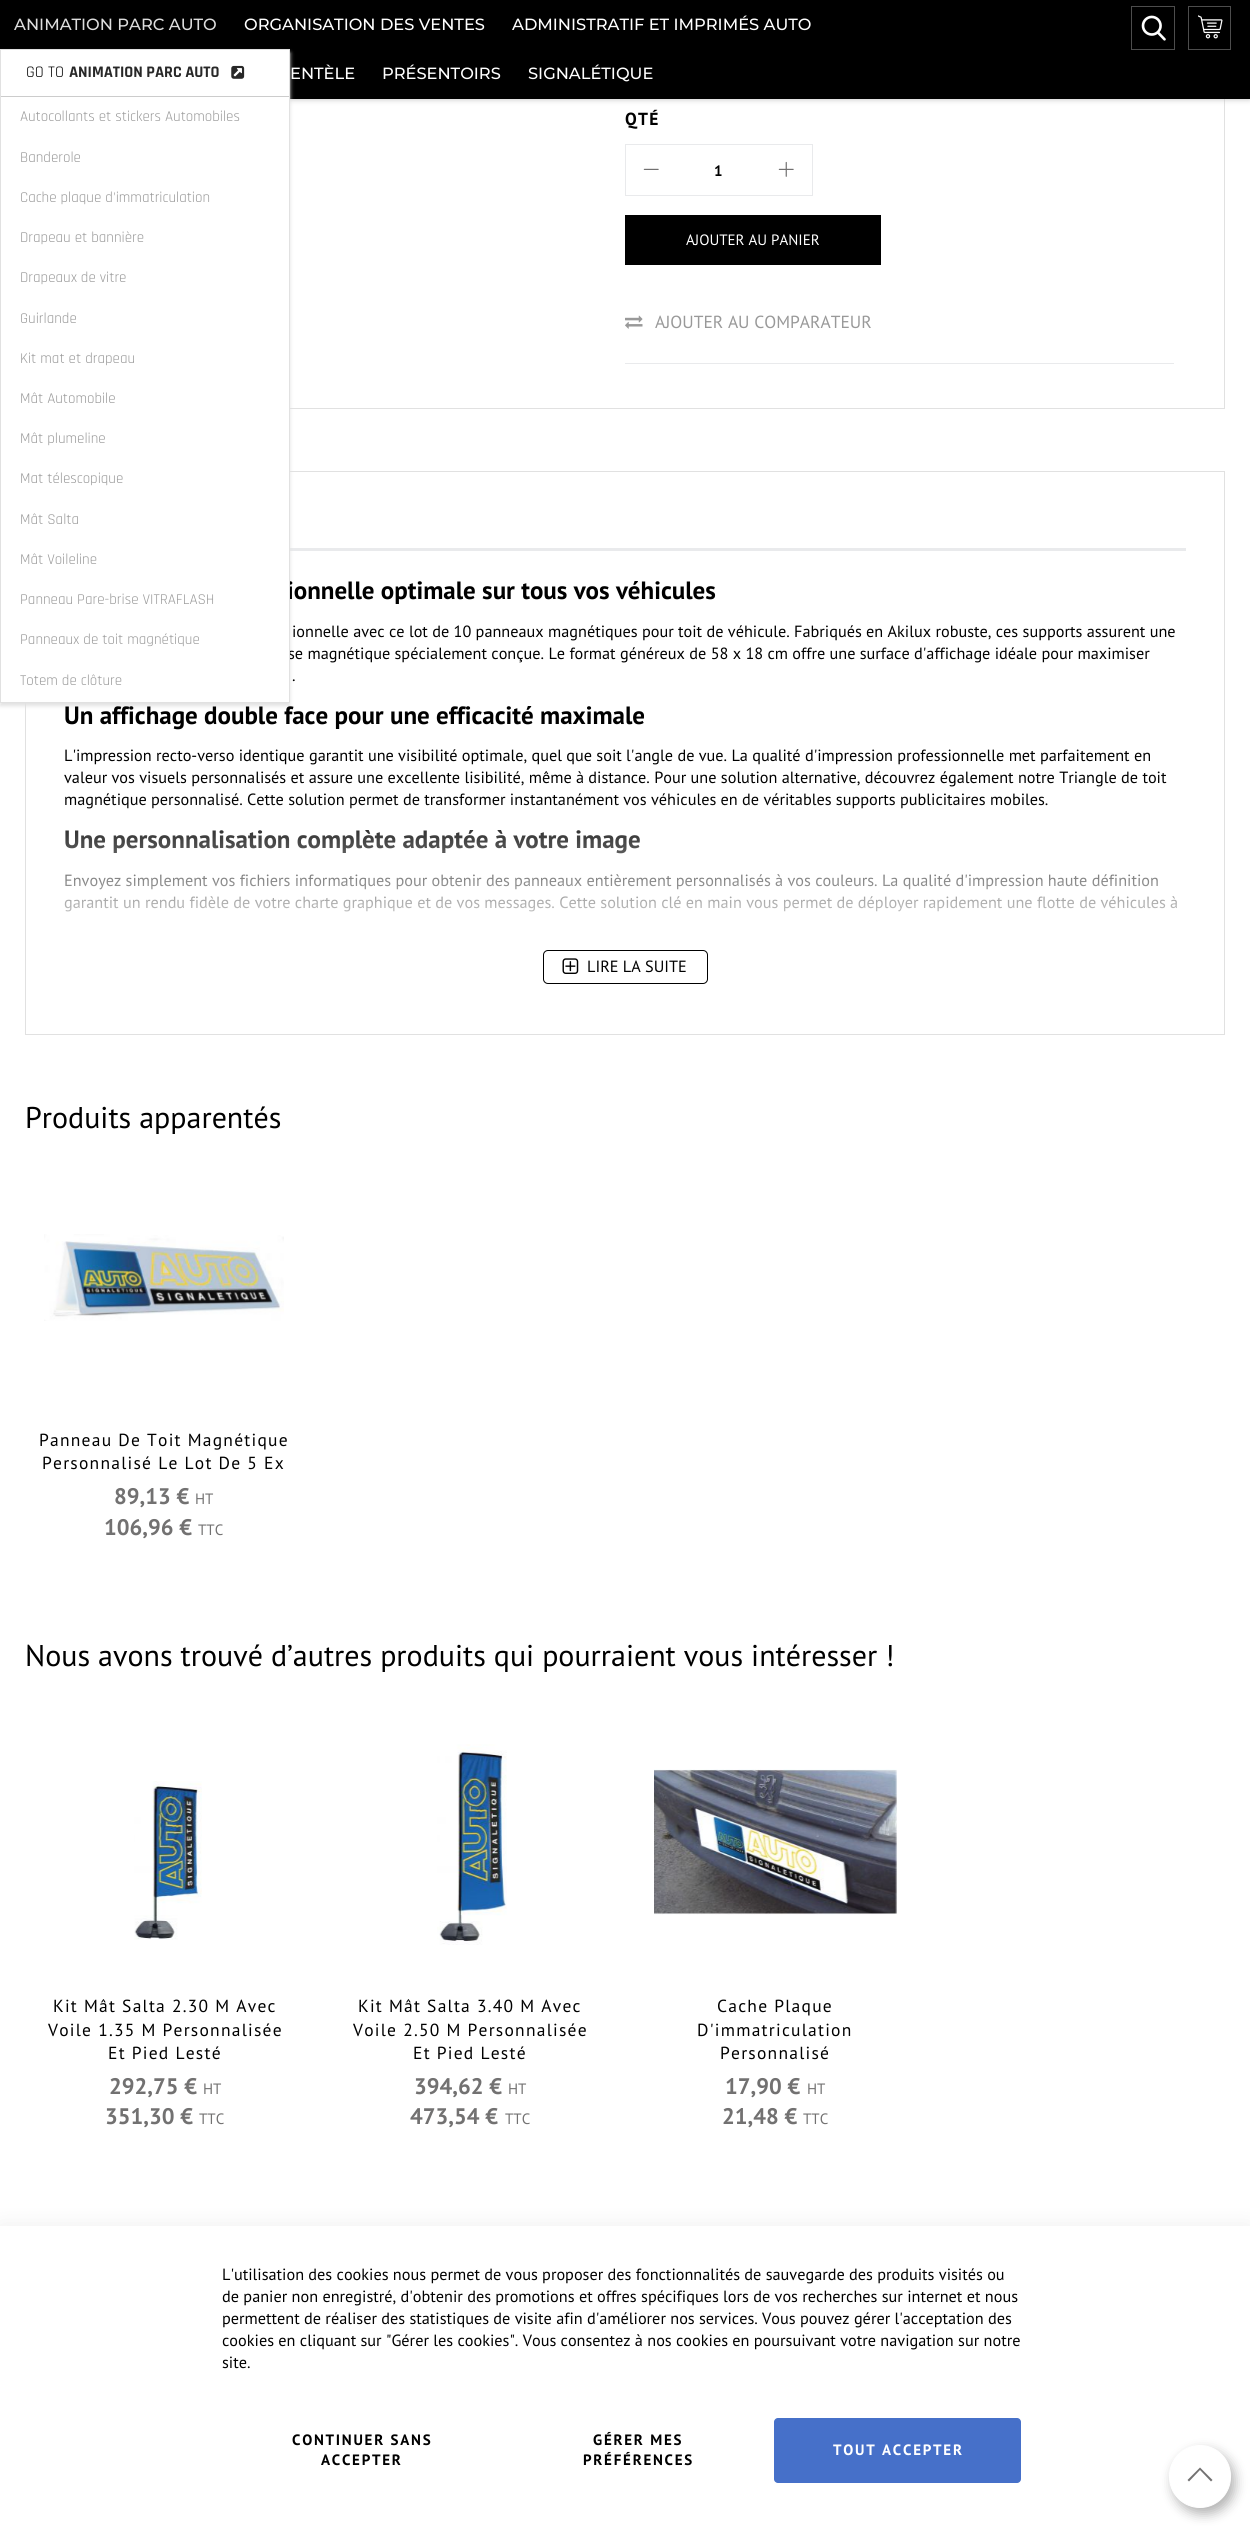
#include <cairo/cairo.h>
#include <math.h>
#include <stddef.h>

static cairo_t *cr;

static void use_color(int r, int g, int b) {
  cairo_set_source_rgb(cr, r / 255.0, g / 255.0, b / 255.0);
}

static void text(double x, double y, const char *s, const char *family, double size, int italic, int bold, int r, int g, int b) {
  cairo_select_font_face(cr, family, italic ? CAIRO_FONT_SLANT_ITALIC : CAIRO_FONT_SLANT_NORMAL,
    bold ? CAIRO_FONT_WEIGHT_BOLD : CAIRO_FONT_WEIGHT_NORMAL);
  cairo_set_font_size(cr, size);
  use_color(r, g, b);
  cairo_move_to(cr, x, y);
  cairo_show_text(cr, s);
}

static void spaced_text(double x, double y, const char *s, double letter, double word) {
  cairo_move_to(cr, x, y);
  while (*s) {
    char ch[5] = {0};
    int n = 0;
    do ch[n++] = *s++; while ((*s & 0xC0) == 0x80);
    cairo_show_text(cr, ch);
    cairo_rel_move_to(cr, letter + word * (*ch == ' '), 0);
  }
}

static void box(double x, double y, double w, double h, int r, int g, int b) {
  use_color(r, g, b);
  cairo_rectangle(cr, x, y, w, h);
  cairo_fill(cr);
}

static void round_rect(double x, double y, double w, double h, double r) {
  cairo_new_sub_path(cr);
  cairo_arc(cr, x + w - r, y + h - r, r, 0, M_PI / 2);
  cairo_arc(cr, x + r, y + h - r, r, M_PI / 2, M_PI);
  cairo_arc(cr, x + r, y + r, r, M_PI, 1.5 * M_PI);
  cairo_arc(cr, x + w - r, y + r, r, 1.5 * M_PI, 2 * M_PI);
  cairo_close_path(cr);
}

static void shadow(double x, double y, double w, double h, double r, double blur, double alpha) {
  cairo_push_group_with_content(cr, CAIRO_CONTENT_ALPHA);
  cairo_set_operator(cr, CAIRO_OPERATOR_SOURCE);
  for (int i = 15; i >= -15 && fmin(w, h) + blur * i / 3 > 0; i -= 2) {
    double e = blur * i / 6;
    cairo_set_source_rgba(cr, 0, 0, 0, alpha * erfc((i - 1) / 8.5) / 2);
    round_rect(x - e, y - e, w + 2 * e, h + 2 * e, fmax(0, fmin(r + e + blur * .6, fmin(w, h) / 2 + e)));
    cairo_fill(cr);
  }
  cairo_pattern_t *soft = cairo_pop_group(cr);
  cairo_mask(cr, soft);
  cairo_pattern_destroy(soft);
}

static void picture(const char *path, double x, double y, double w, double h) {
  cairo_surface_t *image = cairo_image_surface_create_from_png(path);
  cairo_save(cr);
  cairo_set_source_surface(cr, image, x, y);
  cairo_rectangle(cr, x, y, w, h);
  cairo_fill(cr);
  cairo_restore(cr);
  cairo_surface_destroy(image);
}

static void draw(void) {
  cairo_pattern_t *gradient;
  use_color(255, 255, 255);
  cairo_paint(cr);
  cairo_rectangle(cr, 25.5, -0.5, 1199, 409);
  use_color(225, 225, 225);
  cairo_set_line_width(cr, 1);
  cairo_stroke(cr);
  use_color(189, 189, 189);
  shadow(0, 0, 1250, 99, 0, 3, 1);
  box(0, 0, 1250, 99, 0, 0, 0);
  cairo_rectangle(cr, 25.5, 471.5, 1199, 563);
  use_color(225, 225, 225);
  cairo_stroke(cr);
  box(290, 548, 896, 3, 233, 234, 236);
  use_color(225, 225, 225);
  shadow(0, 53, 290, 653, 0, 2, 1);
  cairo_rectangle(cr, 1131.5, 6.5, 43, 43);
  use_color(77, 77, 77);
  cairo_stroke(cr);
  picture("img_02.png", 1141, 15, 25, 26);
  cairo_rectangle(cr, 1188.5, 6.5, 42, 43);
  cairo_stroke(cr);
  picture("img_03.png", 1198, 15, 25, 24);
  cairo_rectangle(cr, 625.5, 144.5, 187, 51);
  use_color(233, 234, 236);
  cairo_stroke(cr);
  picture("img_04.png", 643, 168, 16, 2);
  picture("img_05.png", 778, 161, 16, 16);
  box(625, 215, 256, 50, 0, 0, 0);
  box(625, 363, 549, 1, 233, 234, 236);
  picture("img_06.png", 625, 315, 18, 14);
  round_rect(543.5, 950.5, 164, 33, 4.5);
  use_color(0, 0, 0);
  cairo_stroke(cr);
  picture("img_07.png", 562, 958, 17, 16);
  picture("img_08.png", 44, 1234, 240, 87);
  picture("img_09.png", 134, 1781, 68, 159);
  picture("img_10.png", 437, 1744, 70, 201);
  picture("img_11.png", 654, 1769, 243, 146);
  use_color(0, 0, 0);
  shadow(0, 2224, 1250, 300, 0, 11, 0.06);
  box(0, 2226, 1250, 300, 255, 255, 255);
  use_color(70, 112, 201);
  round_rect(774, 2418, 247, 65, 4);
  cairo_fill(cr);
  use_color(0, 0, 0);
  shadow(1173, 2451, 62, 63, 31, 6, 0.3);
  use_color(255, 255, 255);
  round_rect(1169.5, 2445.5, 61, 62, 30.5);
  cairo_fill_preserve(cr);
  cairo_stroke(cr);
  use_color(114, 113, 113);
  cairo_new_path(cr);
  cairo_move_to(cr, 1200, 2467.5);
  cairo_line_to(cr, 1187.5, 2480);
  cairo_line_to(cr, 1189, 2481.5);
  cairo_line_to(cr, 1200, 2470);
  cairo_line_to(cr, 1211, 2481.5);
  cairo_line_to(cr, 1212.5, 2480);
  cairo_close_path(cr);
  cairo_fill(cr);
  text(14, 30, "ANIMATION PARC AUTO", "Montserrat Medium", 16.25, 0, 0, 221, 221, 221);
  text(244, 30, "ORGANISATION DES VENTES", "Montserrat Medium", 16.25, 0, 0, 255, 255, 255);
  text(512, 30, "ADMINISTRATIF ET IMPRIMÉS AUTO", "Montserrat Medium", 16.25, 0, 0, 255, 255, 255);
  text(290, 79, "ENTÈLE", "Montserrat Medium", 16.25, 0, 0, 255, 255, 255);
  text(382, 79, "PRÉSENTOIRS", "Montserrat Medium", 16.25, 0, 0, 255, 255, 255);
  text(528, 79, "SIGNALÉTIQUE", "Montserrat Medium", 16.25, 0, 0, 255, 255, 255);
  cairo_select_font_face(cr, "PT Sans", CAIRO_FONT_SLANT_NORMAL, CAIRO_FONT_WEIGHT_BOLD);
  cairo_set_font_size(cr, 17.5);
  use_color(0, 0, 0);
  spaced_text(625, 125, "QTÉ", 1.25, 0);
  text(714, 176, "1", "PT Sans", 15, 0, 1, 0, 0, 0);
  text(686, 245, "AJOUTER AU PANIER", "PT Sans", 15, 0, 0, 255, 255, 255);
  text(655, 328, "AJOUTER AU COMPARATEUR", "PT Sans", 17.5, 0, 0, 153, 153, 153);
  text(287, 599, "ionnelle optimale sur tous vos véhicules", "PT Sans", 25, 0, 1, 0, 0, 0);
  text(292, 637, "ionnelle avec ce lot de 10 panneaux magnétiques pour toit de véhicule. Fabriqués en Akilux robuste, ces supports assurent une", "PT Sans", 16.25, 0, 0, 0, 0, 0);
  text(288, 659, "se magnétique spécialement conçue. Le format généreux de 58 x 18 cm offre une surface d'affichage idéale pour maximiser", "PT Sans", 16.25, 0, 0, 0, 0, 0);
  use_color(255, 255, 255);
  cairo_rectangle(cr, 0.5, 49.5, 289, 653);
  cairo_fill_preserve(cr);
  use_color(225, 225, 225);
  cairo_stroke(cr);
  text(20, 685, "Totem de clôture", "Rajdhani", 15, 0, 0, 153, 153, 153);
  text(20, 644, "Panneaux de toit magnétique", "Rajdhani", 15, 0, 0, 153, 153, 153);
  text(20, 604, "Panneau Pare-brise VITRAFLASH", "Rajdhani", 15, 0, 0, 153, 153, 153);
  text(20, 564, "Mât Voileline", "Rajdhani", 15, 0, 0, 153, 153, 153);
  text(20, 524, "Mât Salta", "Rajdhani", 15, 0, 0, 153, 153, 153);
  text(20, 483, "Mat télescopique", "Rajdhani", 15, 0, 0, 153, 153, 153);
  text(20, 443, "Mât plumeline", "Rajdhani", 15, 0, 0, 153, 153, 153);
  text(20, 403, "Mât Automobile", "Rajdhani", 15, 0, 0, 153, 153, 153);
  text(20, 363, "Kit mat et drapeau", "Rajdhani", 15, 0, 0, 153, 153, 153);
  text(20, 323, "Guirlande", "Rajdhani", 15, 0, 0, 153, 153, 153);
  text(20, 282, "Drapeaux de vitre", "Rajdhani", 15, 0, 0, 153, 153, 153);
  text(20, 242, "Drapeau et bannière", "Rajdhani", 15, 0, 0, 153, 153, 153);
  text(20, 202, "Cache plaque d'immatriculation", "Rajdhani", 15, 0, 0, 153, 153, 153);
  text(20, 162, "Banderole", "Rajdhani", 15, 0, 0, 153, 153, 153);
  text(20, 121, "Autocollants et stickers Automobiles", "Rajdhani", 15, 0, 0, 153, 153, 153);
  picture("img_01.png", 231, 65, 14, 14);
  text(69, 77, "ANIMATION PARC AUTO", "Rajdhani", 16.25, 0, 1, 40, 40, 40);
  text(26, 77, "GO TO", "Rajdhani", 16.25, 0, 0, 0, 0, 0);
  box(1, 96, 288, 1, 204, 204, 204);
  text(292, 681, ".", "PT Sans", 16.25, 0, 0, 0, 0, 0);
  text(64, 724, "Un affichage double face pour une efficacité maximale", "PT Sans", 25, 0, 1, 0, 0, 0);
  text(64, 761, "L'impression recto-verso identique garantit une visibilité optimale, quel que soit l'angle de vue. La qualité d'impression professionnelle met parfaitement en", "PT Sans", 16.25, 0, 0, 0, 0, 0);
  text(64, 783, "valeur vos visuels personnalisés et assure une excellente lisibilité, même à distance. Pour une solution alternative, découvrez également notre Triangle de toit", "PT Sans", 16.25, 0, 0, 0, 0, 0);
  text(64, 805, "magnétique personnalisé. Cette solution permet de transformer instantanément vos véhicules en de véritables supports publicitaires mobiles.", "PT Sans", 16.25, 0, 0, 0, 0, 0);
  text(64, 848, "Une personnalisation complète adaptée à votre image", "PT Sans", 25, 0, 1, 0, 0, 0);
  text(64, 886, "Envoyez simplement vos fichiers informatiques pour obtenir des panneaux entièrement personnalisés à vos couleurs. La qualité d'impression haute définition", "PT Sans", 16.25, 0, 0, 0, 0, 0);
  text(64, 908, "garantit un rendu fidèle de votre charte graphique et de vos messages. Cette solution clé en main vous permet de déployer rapidement une flotte de véhicules à", "PT Sans", 16.25, 0, 0, 0, 0, 0);
  gradient = cairo_pattern_create_linear(625, 800, 625, 950);
  cairo_pattern_add_color_stop_rgba(gradient, 0, 1, 1, 1, 0);
  cairo_pattern_add_color_stop_rgba(gradient, 1, 1, 1, 1, 1);
  cairo_set_source(cr, gradient);
  cairo_pattern_destroy(gradient);
  cairo_rectangle(cr, 64, 803, 1113, 109);
  cairo_fill(cr);
  text(587, 972, "LIRE LA SUITE", "PT Sans", 16.25, 0, 0, 0, 0, 0);
  text(25, 1128, "Produits apparentés", "PT Sans", 30, 0, 0, 0, 0, 0);
  cairo_set_font_size(cr, 17.5);
  spaced_text(39, 1446, "Panneau De Toit Magnétique", 1.25, 0);
  spaced_text(42, 1469, "Personnalisé Le Lot De 5 Ex", 1.25, 0);
  text(114, 1504, "89,13 €", "PT Sans", 22.5, 0, 1, 114, 113, 113);
  text(195, 1504, "HT", "PT Sans", 15, 0, 0, 114, 113, 113);
  text(104, 1535, "106,96 €", "PT Sans", 22.5, 0, 1, 114, 113, 113);
  text(198, 1535, "TTC", "PT Sans", 15, 0, 0, 114, 113, 113);
  text(25, 1666, "Nous avons trouvé d’autres produits qui pourraient vous intéresser !", "PT Sans", 30, 0, 0, 0, 0, 0);
  cairo_set_font_size(cr, 17.5);
  spaced_text(53, 2012, "Kit Mât Salta 2.30 M Avec", 1.25, 0);
  spaced_text(48, 2036, "Voile 1.35 M Personnalisée", 1.25, 0);
  spaced_text(108, 2059, "Et Pied Lesté", 1.25, 0);
  text(109, 2094, "292,75 €", "PT Sans", 22.5, 0, 1, 114, 113, 113);
  text(203, 2094, "HT", "PT Sans", 15, 0, 0, 114, 113, 113);
  text(105, 2124, "351,30 €", "PT Sans", 22.5, 0, 1, 114, 113, 113);
  text(199, 2124, "TTC", "PT Sans", 15, 0, 0, 114, 113, 113);
  cairo_set_font_size(cr, 17.5);
  use_color(0, 0, 0);
  spaced_text(358, 2012, "Kit Mât Salta 3.40 M Avec", 1.25, 0);
  spaced_text(353, 2036, "Voile 2.50 M Personnalisée", 1.25, 0);
  spaced_text(413, 2059, "Et Pied Lesté", 1.25, 0);
  text(414, 2094, "394,62 €", "PT Sans", 22.5, 0, 1, 114, 113, 113);
  text(508, 2094, "HT", "PT Sans", 15, 0, 0, 114, 113, 113);
  text(410, 2124, "473,54 €", "PT Sans", 22.5, 0, 1, 114, 113, 113);
  text(505, 2124, "TTC", "PT Sans", 15, 0, 0, 114, 113, 113);
  cairo_set_font_size(cr, 17.5);
  use_color(0, 0, 0);
  spaced_text(717, 2012, "Cache Plaque", 1.25, 0);
  spaced_text(697, 2036, "D'immatriculation", 1.25, 0);
  spaced_text(720, 2059, "Personnalisé", 1.25, 0);
  text(725, 2094, "17,90 €", "PT Sans", 22.5, 0, 1, 114, 113, 113);
  text(807, 2094, "HT", "PT Sans", 15, 0, 0, 114, 113, 113);
  text(722, 2124, "21,48 €", "PT Sans", 22.5, 0, 1, 114, 113, 113);
  text(803, 2124, "TTC", "PT Sans", 15, 0, 0, 114, 113, 113);
  text(222, 2280, "L'utilisation des cookies nous permet de vous proposer des fonctionnalités de sauvegarde des produits visités ou", "PT Sans", 16.25, 0, 0, 0, 0, 0);
  text(222, 2302, "de panier non enregistré, d'obtenir des promotions et offres spécifiques lors de vos recherches sur internet et nous", "PT Sans", 16.25, 0, 0, 0, 0, 0);
  text(222, 2324, "permettent de réaliser des statistiques de visite afin d'améliorer nos services. Vous pouvez gérer l'acceptation des", "PT Sans", 16.25, 0, 0, 0, 0, 0);
  text(222, 2346, "cookies en cliquant sur \"Gérer les cookies\". Vous consentez à nos cookies en poursuivant votre navigation sur notre", "PT Sans", 16.25, 0, 0, 0, 0, 0);
  text(222, 2368, "site.", "PT Sans", 16.25, 0, 0, 0, 0, 0);
  cairo_select_font_face(cr, "PT Sans", CAIRO_FONT_SLANT_NORMAL, CAIRO_FONT_WEIGHT_BOLD);
  cairo_set_font_size(cr, 15);
  spaced_text(292, 2445, "CONTINUER SANS", 1.75, 0);
  spaced_text(321, 2465, "ACCEPTER", 1.75, 0);
  spaced_text(593, 2445, "GÉRER MES", 1.75, 0);
  spaced_text(583, 2465, "PRÉFÉRENCES", 1.75, 0);
  use_color(255, 255, 255);
  spaced_text(833, 2455, "TOUT ACCEPTER", 1.75, 0);
}

int main(void) {
  cairo_surface_t *surface = cairo_image_surface_create(CAIRO_FORMAT_RGB24, 1250, 2526);
  cr = cairo_create(surface);
  cairo_font_options_t *options = cairo_font_options_create();
  cairo_font_options_set_hint_metrics(options, CAIRO_HINT_METRICS_OFF);
  cairo_font_options_set_hint_style(options, CAIRO_HINT_STYLE_NONE);
  cairo_set_font_options(cr, options);
  cairo_set_miter_limit(cr, 4);
  draw();
  cairo_surface_write_to_png(surface, "out.png");
  cairo_font_options_destroy(options);
  cairo_destroy(cr);
  cairo_surface_destroy(surface);
  return 0;
}
